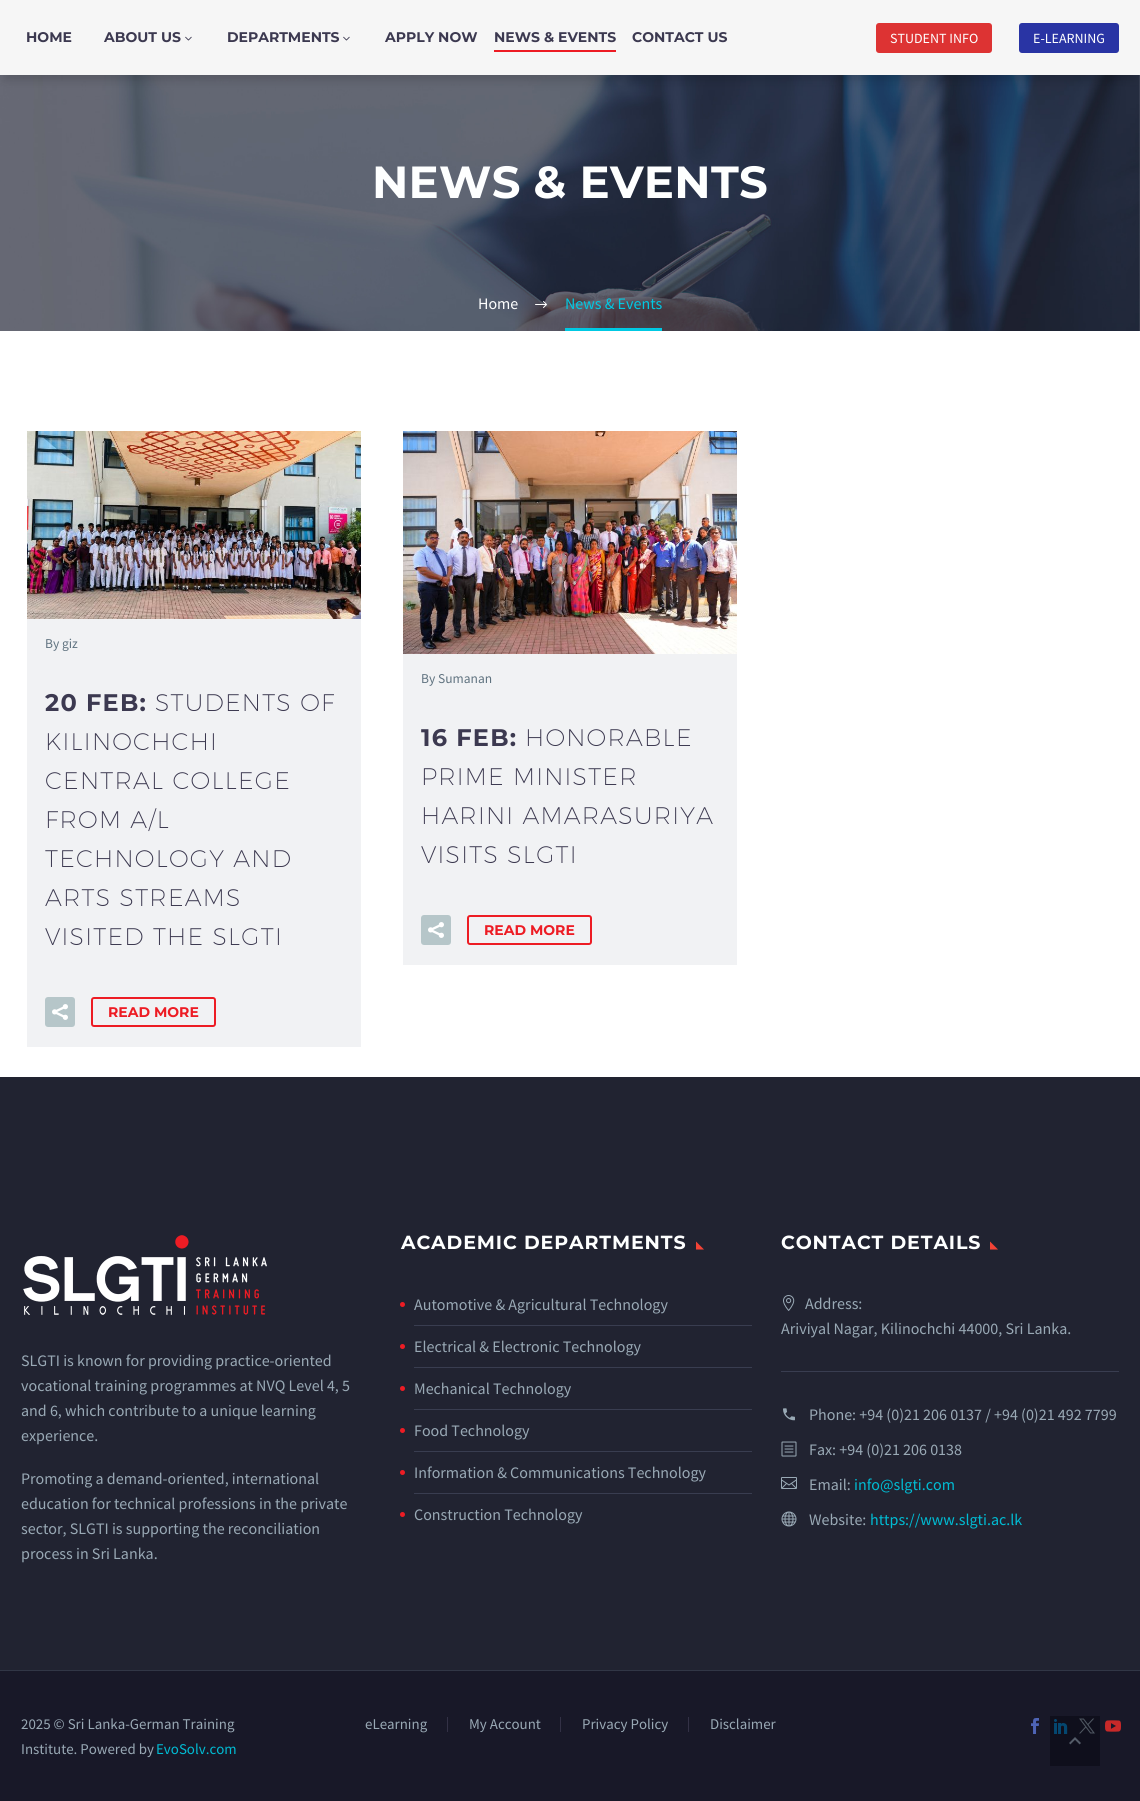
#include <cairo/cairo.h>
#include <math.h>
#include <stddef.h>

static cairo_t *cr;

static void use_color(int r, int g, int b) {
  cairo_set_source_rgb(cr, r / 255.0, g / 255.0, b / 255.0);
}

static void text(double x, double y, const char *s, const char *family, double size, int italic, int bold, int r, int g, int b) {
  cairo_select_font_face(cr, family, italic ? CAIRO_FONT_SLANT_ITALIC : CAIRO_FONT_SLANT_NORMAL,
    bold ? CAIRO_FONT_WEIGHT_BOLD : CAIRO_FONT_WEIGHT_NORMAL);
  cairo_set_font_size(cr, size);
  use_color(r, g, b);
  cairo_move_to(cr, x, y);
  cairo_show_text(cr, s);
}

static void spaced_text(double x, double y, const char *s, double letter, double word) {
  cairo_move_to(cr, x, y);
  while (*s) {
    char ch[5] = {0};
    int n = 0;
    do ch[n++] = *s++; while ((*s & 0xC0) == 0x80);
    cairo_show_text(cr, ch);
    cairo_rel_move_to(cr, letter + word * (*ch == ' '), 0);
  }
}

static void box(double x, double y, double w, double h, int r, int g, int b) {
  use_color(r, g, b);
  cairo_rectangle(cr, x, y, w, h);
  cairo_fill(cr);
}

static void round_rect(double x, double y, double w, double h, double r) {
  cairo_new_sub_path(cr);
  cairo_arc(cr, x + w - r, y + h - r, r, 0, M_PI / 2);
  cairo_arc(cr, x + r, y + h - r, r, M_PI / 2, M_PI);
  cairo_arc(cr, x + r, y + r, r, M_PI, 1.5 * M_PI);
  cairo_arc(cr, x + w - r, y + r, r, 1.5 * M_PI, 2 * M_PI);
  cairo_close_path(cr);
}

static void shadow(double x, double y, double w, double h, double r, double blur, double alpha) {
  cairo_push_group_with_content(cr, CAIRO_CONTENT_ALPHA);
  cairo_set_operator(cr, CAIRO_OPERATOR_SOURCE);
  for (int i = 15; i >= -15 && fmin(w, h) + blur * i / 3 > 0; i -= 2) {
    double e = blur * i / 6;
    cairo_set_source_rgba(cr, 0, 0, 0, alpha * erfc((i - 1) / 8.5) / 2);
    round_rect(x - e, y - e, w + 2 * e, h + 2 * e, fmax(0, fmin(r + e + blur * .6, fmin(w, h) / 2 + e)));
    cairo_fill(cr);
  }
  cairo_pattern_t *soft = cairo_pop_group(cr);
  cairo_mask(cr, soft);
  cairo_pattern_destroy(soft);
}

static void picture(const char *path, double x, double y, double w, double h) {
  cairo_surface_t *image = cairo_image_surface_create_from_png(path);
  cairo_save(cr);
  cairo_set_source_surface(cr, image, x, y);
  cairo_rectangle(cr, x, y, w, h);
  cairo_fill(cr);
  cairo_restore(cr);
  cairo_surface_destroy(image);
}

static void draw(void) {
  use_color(255, 255, 255);
  cairo_paint(cr);
  picture("img_02.png", 0, 75, 1140, 256);
  use_color(0, 0, 0);
  shadow(5, 15, 1130, 65, 0, 5, 0.15);
  box(0, 0, 1140, 75, 246, 246, 246);
  picture("img_01.png", 185, 36, 7, 5);
  picture("img_01.png", 343, 36, 7, 5);
  box(494, 50, 122, 2, 237, 28, 36);
  use_color(221, 51, 51);
  round_rect(876, 23, 116, 30, 3);
  cairo_fill(cr);
  use_color(41, 52, 164);
  round_rect(1019, 23, 100, 30, 3);
  cairo_fill(cr);
  picture("img_03.png", 535, 301, 12, 7);
  box(565, 328, 97, 3, 0, 201, 227);
  picture("img_04.png", 27, 431, 334, 188);
  box(27, 619, 334, 428, 241, 242, 244);
  use_color(182, 198, 201);
  round_rect(45, 997, 30, 30, 3);
  cairo_fill(cr);
  picture("img_05.png", 52, 1004, 16, 16);
  round_rect(92, 998, 123, 28, 2);
  use_color(237, 28, 36);
  cairo_stroke(cr);
  picture("img_06.png", 403, 431, 334, 223);
  box(403, 654, 334, 311, 241, 242, 244);
  use_color(182, 198, 201);
  round_rect(421, 915, 30, 30, 3);
  cairo_fill(cr);
  picture("img_05.png", 428, 922, 16, 16);
  round_rect(468, 916, 123, 28, 2);
  use_color(237, 28, 36);
  cairo_stroke(cr);
  box(0, 1077, 1140, 593, 33, 35, 49);
  picture("img_07.png", 23, 1235, 244, 80);
  use_color(244, 67, 54);
  cairo_new_path(cr);
  cairo_move_to(cr, 696, 1241.5);
  cairo_line_to(cr, 696, 1249.5);
  cairo_line_to(cr, 704, 1249.5);
  cairo_close_path(cr);
  cairo_fill(cr);
  box(414, 1325, 338, 1, 57, 61, 80);
  use_color(237, 28, 36);
  cairo_arc(cr, 402.5, 1304.5, 2.5, 0, 2 * M_PI);
  cairo_fill(cr);
  box(414, 1367, 338, 1, 57, 61, 80);
  use_color(237, 28, 36);
  cairo_arc(cr, 402.5, 1346.5, 2.5, 0, 2 * M_PI);
  cairo_fill(cr);
  box(414, 1409, 338, 1, 57, 61, 80);
  use_color(237, 28, 36);
  cairo_arc(cr, 402.5, 1388.5, 2.5, 0, 2 * M_PI);
  cairo_fill(cr);
  box(414, 1451, 338, 1, 57, 61, 80);
  use_color(237, 28, 36);
  cairo_arc(cr, 402.5, 1430.5, 2.5, 0, 2 * M_PI);
  cairo_fill(cr);
  box(414, 1493, 338, 1, 57, 61, 80);
  use_color(237, 28, 36);
  cairo_arc(cr, 402.5, 1472.5, 2.5, 0, 2 * M_PI);
  cairo_fill(cr);
  cairo_arc(cr, 402.5, 1514.5, 2.5, 0, 2 * M_PI);
  cairo_fill(cr);
  use_color(244, 67, 54);
  cairo_new_path(cr);
  cairo_move_to(cr, 990, 1241.5);
  cairo_line_to(cr, 990, 1249.5);
  cairo_line_to(cr, 998, 1249.5);
  cairo_close_path(cr);
  cairo_fill(cr);
  box(781, 1371, 338, 1, 57, 61, 80);
  picture("img_08.png", 783, 1295, 12, 16);
  picture("img_09.png", 783, 1408, 12, 13);
  picture("img_10.png", 781, 1441, 16, 16);
  picture("img_11.png", 781, 1477, 16, 12);
  picture("img_12.png", 781, 1511, 16, 16);
  box(0, 1671, 1140, 130, 24, 24, 40);
  box(1050, 1716, 50, 50, 15, 15, 28);
  box(0, 1670, 1140, 1, 49, 54, 70);
  box(447, 1717, 1, 15, 51, 49, 70);
  box(560, 1717, 1, 15, 51, 49, 70);
  box(688, 1717, 1, 15, 51, 49, 70);
  picture("img_13.png", 1031, 1718, 8, 16);
  picture("img_14.png", 1054, 1719, 14, 15);
  picture("img_15.png", 1079, 1718, 16, 16);
  picture("img_16.png", 1105, 1720, 16, 12);
  picture("img_17.png", 1069, 1737, 12, 8);
  text(26, 42, "HOME", "Montserrat", 14, 0, 1, 60, 57, 80);
  text(104, 42, "ABOUT US", "Montserrat", 14, 0, 1, 60, 57, 80);
  text(227, 42, "DEPARTMENTS", "Montserrat", 14, 0, 1, 60, 57, 80);
  text(385, 42, "APPLY NOW", "Montserrat", 14, 0, 1, 60, 57, 80);
  text(494, 42, "NEWS & EVENTS", "Montserrat", 14, 0, 1, 60, 57, 80);
  text(632, 42, "CONTACT US", "Montserrat", 14, 0, 1, 60, 57, 80);
  text(890, 43, "STUDENT INFO", "Source Sans Pro", 14, 0, 0, 254, 255, 255);
  text(1033, 43, "E-LEARNING", "Source Sans Pro", 14, 0, 0, 254, 255, 255);
  cairo_select_font_face(cr, "Montserrat", CAIRO_FONT_SLANT_NORMAL, CAIRO_FONT_WEIGHT_BOLD);
  cairo_set_font_size(cr, 45);
  spaced_text(372, 198, "NEWS & EVENTS", 0.25, 0);
  text(478, 309, "Home", "Source Sans Pro", 16, 0, 0, 254, 255, 255);
  text(565, 309, "News & Events", "Source Sans Pro", 16, 0, 0, 0, 201, 227);
  text(45, 648, "By giz", "Source Sans Pro", 13.5, 0, 0, 95, 114, 127);
  cairo_select_font_face(cr, "Montserrat", CAIRO_FONT_SLANT_NORMAL, CAIRO_FONT_WEIGHT_BOLD);
  cairo_set_font_size(cr, 24);
  use_color(60, 57, 80);
  spaced_text(45, 711, "20 FEB:", 1.25, 0);
  cairo_select_font_face(cr, "Montserrat ExtraLight", CAIRO_FONT_SLANT_NORMAL, CAIRO_FONT_WEIGHT_NORMAL);
  spaced_text(155, 711, "STUDENTS OF", 1.25, 0);
  spaced_text(45, 750, "KILINOCHCHI", 1.25, 0);
  spaced_text(45, 789, "CENTRAL COLLEGE", 1.25, 0);
  spaced_text(45, 828, "FROM A/L", 1.25, 0);
  spaced_text(45, 867, "TECHNOLOGY AND", 1.25, 0);
  spaced_text(45, 906, "ARTS STREAMS", 1.25, 0);
  spaced_text(45, 945, "VISITED THE SLGTI", 1.25, 0);
  text(108, 1017, "READ MORE", "Montserrat", 14, 0, 1, 237, 28, 36);
  text(421, 683, "By Sumanan", "Source Sans Pro", 13.5, 0, 0, 95, 114, 127);
  cairo_select_font_face(cr, "Montserrat", CAIRO_FONT_SLANT_NORMAL, CAIRO_FONT_WEIGHT_BOLD);
  cairo_set_font_size(cr, 24);
  use_color(60, 57, 80);
  spaced_text(421, 746, "16 FEB:", 1.25, 0);
  cairo_select_font_face(cr, "Montserrat ExtraLight", CAIRO_FONT_SLANT_NORMAL, CAIRO_FONT_WEIGHT_NORMAL);
  spaced_text(525, 746, "HONORABLE", 1.25, 0);
  spaced_text(421, 785, "PRIME MINISTER", 1.25, 0);
  spaced_text(421, 824, "HARINI AMARASURIYA", 1.25, 0);
  spaced_text(421, 863, "VISITS SLGTI", 1.25, 0);
  text(484, 935, "READ MORE", "Montserrat", 14, 0, 1, 237, 28, 36);
  text(21, 1366, "SLGTI is known for providing practice-oriented", "Source Sans Pro", 16, 0, 0, 153, 169, 181);
  text(21, 1391, "vocational training programmes at NVQ Level 4, 5", "Source Sans Pro", 16, 0, 0, 153, 169, 181);
  text(21, 1416, "and 6, which contribute to a unique learning", "Source Sans Pro", 16, 0, 0, 153, 169, 181);
  text(21, 1441, "experience.", "Source Sans Pro", 16, 0, 0, 153, 169, 181);
  text(21, 1484, "Promoting a demand-oriented, international", "Source Sans Pro", 16, 0, 0, 153, 169, 181);
  text(21, 1509, "education for technical professions in the private", "Source Sans Pro", 16, 0, 0, 153, 169, 181);
  text(21, 1534, "sector, SLGTI is supporting the reconciliation", "Source Sans Pro", 16, 0, 0, 153, 169, 181);
  text(21, 1559, "process in Sri Lanka.", "Source Sans Pro", 16, 0, 0, 153, 169, 181);
  cairo_select_font_face(cr, "Montserrat", CAIRO_FONT_SLANT_NORMAL, CAIRO_FONT_WEIGHT_BOLD);
  cairo_set_font_size(cr, 19);
  use_color(254, 255, 255);
  spaced_text(401, 1249, "ACADEMIC DEPARTMENTS", 0.9, 0);
  text(414, 1310, "Automotive & Agricultural Technology", "Source Sans Pro", 16, 0, 0, 153, 169, 181);
  text(414, 1352, "Electrical & Electronic Technology", "Source Sans Pro", 16, 0, 0, 153, 169, 181);
  text(414, 1394, "Mechanical Technology", "Source Sans Pro", 16, 0, 0, 153, 169, 181);
  text(414, 1436, "Food Technology", "Source Sans Pro", 16, 0, 0, 153, 169, 181);
  text(414, 1478, "Information & Communications Technology", "Source Sans Pro", 16, 0, 0, 153, 169, 181);
  text(414, 1520, "Construction Technology", "Source Sans Pro", 16, 0, 0, 153, 169, 181);
  cairo_select_font_face(cr, "Montserrat", CAIRO_FONT_SLANT_NORMAL, CAIRO_FONT_WEIGHT_BOLD);
  cairo_set_font_size(cr, 19);
  use_color(254, 255, 255);
  spaced_text(781, 1249, "CONTACT DETAILS", 0.9, 0);
  text(805, 1309, "Address:", "Source Sans Pro", 16, 0, 0, 153, 169, 181);
  text(781, 1334, "Ariviyal Nagar, Kilinochchi 44000, Sri Lanka.", "Source Sans Pro", 16, 0, 0, 153, 169, 181);
  text(809, 1420, "Phone: +94 (0)21 206 0137 / +94 (0)21 492 7799", "Source Sans Pro", 16, 0, 0, 153, 169, 181);
  text(809, 1455, "Fax: +94 (0)21 206 0138", "Source Sans Pro", 16, 0, 0, 153, 169, 181);
  text(809, 1490, "Email:", "Source Sans Pro", 16, 0, 0, 153, 169, 181);
  text(854, 1490, "info@slgti.com", "Source Sans Pro", 16, 0, 0, 0, 188, 212);
  text(809, 1525, "Website:", "Source Sans Pro", 16, 0, 0, 153, 169, 181);
  text(870, 1525, "https://www.slgti.ac.lk", "Source Sans Pro", 16, 0, 0, 0, 188, 212);
  text(21, 1729, "2025 © Sri Lanka-German Training", "Source Sans Pro", 14.9, 0, 0, 153, 169, 181);
  text(21, 1754, "Institute. Powered by", "Source Sans Pro", 14.9, 0, 0, 153, 169, 181);
  text(156, 1754, "EvoSolv.com", "Source Sans Pro", 14.9, 0, 0, 0, 188, 212);
  text(365, 1729, "eLearning", "Source Sans Pro", 14.9, 0, 0, 153, 169, 181);
  text(469, 1729, "My Account", "Source Sans Pro", 14.9, 0, 0, 153, 169, 181);
  text(582, 1729, "Privacy Policy", "Source Sans Pro", 14.9, 0, 0, 153, 169, 181);
  text(710, 1729, "Disclaimer", "Source Sans Pro", 14.9, 0, 0, 153, 169, 181);
}

int main(void) {
  cairo_surface_t *surface = cairo_image_surface_create(CAIRO_FORMAT_RGB24, 1140, 1801);
  cr = cairo_create(surface);
  cairo_font_options_t *options = cairo_font_options_create();
  cairo_font_options_set_hint_metrics(options, CAIRO_HINT_METRICS_OFF);
  cairo_font_options_set_hint_style(options, CAIRO_HINT_STYLE_NONE);
  cairo_set_font_options(cr, options);
  cairo_set_miter_limit(cr, 4);
  draw();
  cairo_surface_write_to_png(surface, "out.png");
  cairo_font_options_destroy(options);
  cairo_destroy(cr);
  cairo_surface_destroy(surface);
  return 0;
}
